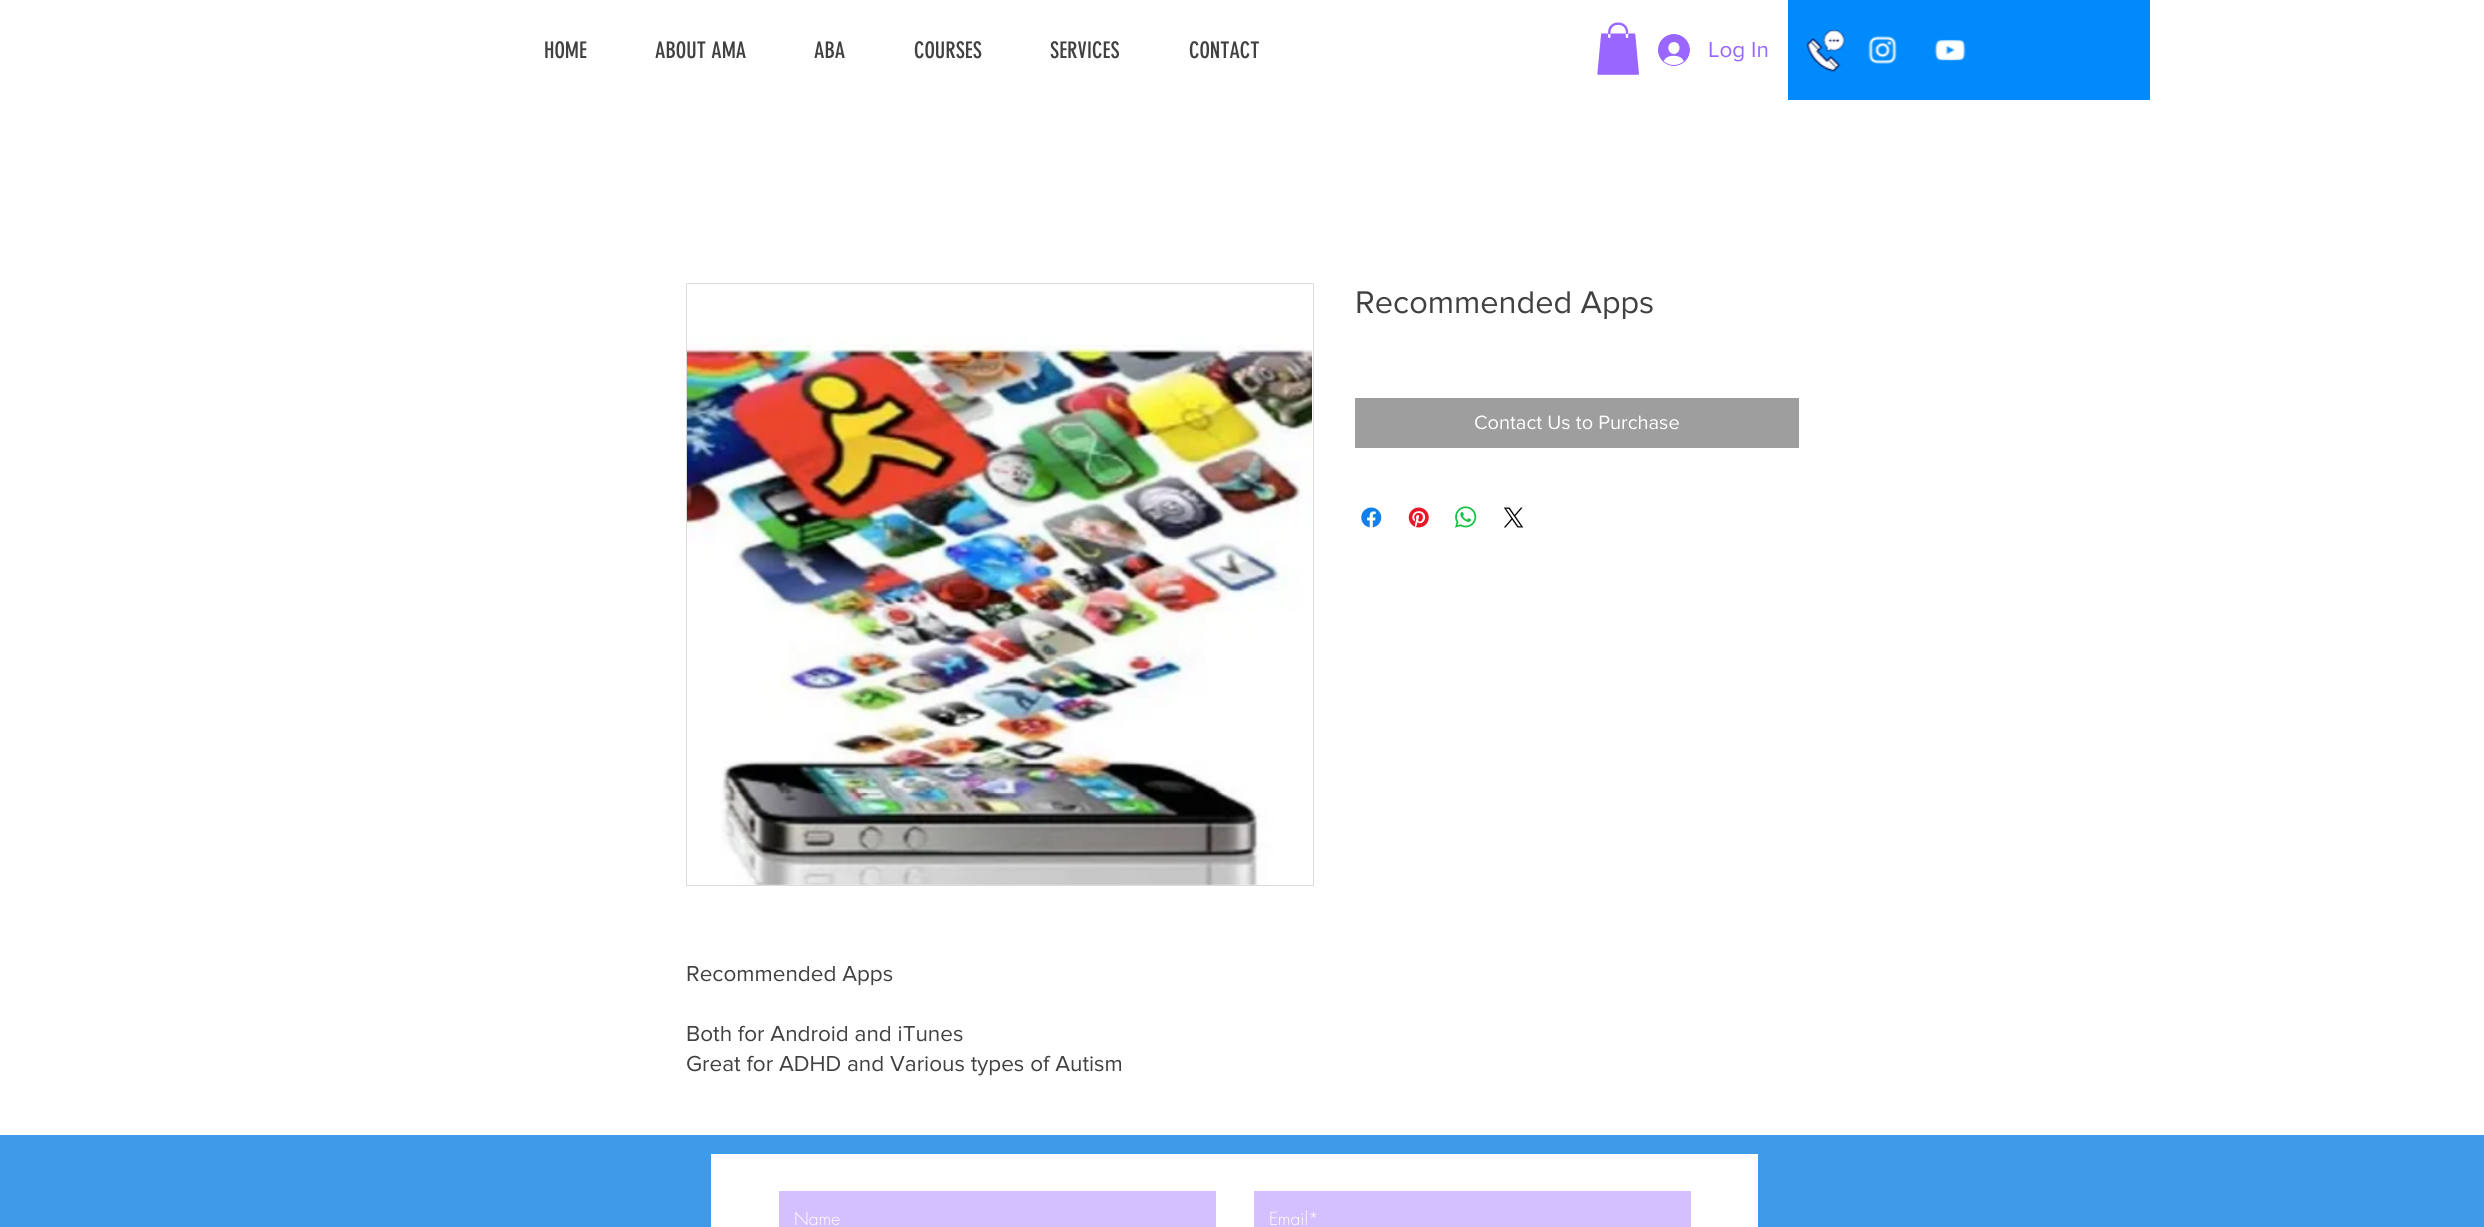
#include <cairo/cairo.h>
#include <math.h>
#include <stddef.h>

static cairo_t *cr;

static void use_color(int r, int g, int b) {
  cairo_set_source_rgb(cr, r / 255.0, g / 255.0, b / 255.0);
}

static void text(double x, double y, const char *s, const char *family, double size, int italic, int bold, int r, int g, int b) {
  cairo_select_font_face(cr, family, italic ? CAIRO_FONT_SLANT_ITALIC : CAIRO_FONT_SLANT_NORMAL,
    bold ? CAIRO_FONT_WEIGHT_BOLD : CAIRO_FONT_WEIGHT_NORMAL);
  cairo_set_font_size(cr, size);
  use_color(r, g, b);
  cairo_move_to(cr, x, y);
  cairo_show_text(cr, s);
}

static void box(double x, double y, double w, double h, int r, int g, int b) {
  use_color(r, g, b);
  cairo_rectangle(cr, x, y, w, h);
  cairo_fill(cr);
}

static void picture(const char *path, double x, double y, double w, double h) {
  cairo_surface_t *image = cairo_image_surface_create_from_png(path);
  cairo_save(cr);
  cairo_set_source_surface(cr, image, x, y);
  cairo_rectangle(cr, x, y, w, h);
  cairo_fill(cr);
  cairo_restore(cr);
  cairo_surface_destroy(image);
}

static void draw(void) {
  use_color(255, 255, 255);
  cairo_paint(cr);
  picture("img_01.png", 1597, 22, 42, 53);
  picture("img_02.png", 1658, 34, 32, 32);
  box(1788, 0, 362, 100, 0, 138, 252);
  picture("img_03.png", 1806, 29, 40, 43);
  picture("img_04.png", 1868, 36, 29, 28);
  picture("img_05.png", 1934, 39, 32, 22);
  box(1355, 398, 444, 50, 158, 158, 158);
  picture("img_06.png", 1361, 507, 21, 21);
  picture("img_07.png", 1408, 507, 21, 21);
  picture("img_08.png", 1455, 506, 22, 22);
  picture("img_09.png", 1503, 507, 21, 21);
  cairo_rectangle(cr, 686.5, 283.5, 627, 602);
  use_color(219, 219, 219);
  cairo_set_line_width(cr, 1);
  cairo_stroke(cr);
  picture("img_10.png", 687, 337, 625, 548);
  box(0, 1135, 2484, 92, 61, 155, 233);
  box(711, 1154, 1047, 73, 255, 255, 255);
  box(779, 1191, 437, 36, 213, 192, 255);
  box(1254, 1191, 437, 36, 213, 192, 255);
  text(544, 58, "HOME", "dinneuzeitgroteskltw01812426", 22.5, 0, 0, 65, 65, 65);
  text(655, 58, "ABOUT AMA", "dinneuzeitgroteskltw01812426", 22.5, 0, 0, 65, 65, 65);
  text(814, 58, "ABA", "dinneuzeitgroteskltw01812426", 22.5, 0, 0, 65, 65, 65);
  text(914, 58, "COURSES", "dinneuzeitgroteskltw01812426", 22.5, 0, 0, 65, 65, 65);
  text(1050, 58, "SERVICES", "dinneuzeitgroteskltw01812426", 22.5, 0, 0, 65, 65, 65);
  text(1189, 58, "CONTACT", "dinneuzeitgroteskltw01812426", 22.5, 0, 0, 65, 65, 65);
  text(1708, 57, "Log In", "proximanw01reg", 22.5, 0, 0, 153, 102, 255);
  text(1355, 313, "Recommended Apps", "proximanw01reg", 32.5, 0, 0, 65, 65, 65);
  text(1474, 429, "Contact Us to Purchase", "proximanw01reg", 20, 0, 0, 255, 255, 255);
  text(686, 981, "Recommended Apps", "proximanw01reg", 22.5, 0, 0, 65, 65, 65);
  text(686, 1041, "Both for Android and iTunes", "proximanw01reg", 22.5, 0, 0, 65, 65, 65);
  text(686, 1071, "Great for ADHD and Various types of Autism", "proximanw01reg", 22.5, 0, 0, 65, 65, 65);
  text(794, 1225, "Name", "futura Light", 17.5, 0, 0, 255, 255, 255);
  text(1269, 1225, "Email*", "futura Light", 17.5, 0, 0, 255, 255, 255);
}

int main(void) {
  cairo_surface_t *surface = cairo_image_surface_create(CAIRO_FORMAT_RGB24, 2484, 1227);
  cr = cairo_create(surface);
  cairo_font_options_t *options = cairo_font_options_create();
  cairo_font_options_set_hint_metrics(options, CAIRO_HINT_METRICS_OFF);
  cairo_font_options_set_hint_style(options, CAIRO_HINT_STYLE_NONE);
  cairo_set_font_options(cr, options);
  cairo_set_miter_limit(cr, 4);
  draw();
  cairo_surface_write_to_png(surface, "out.png");
  cairo_font_options_destroy(options);
  cairo_destroy(cr);
  cairo_surface_destroy(surface);
  return 0;
}
